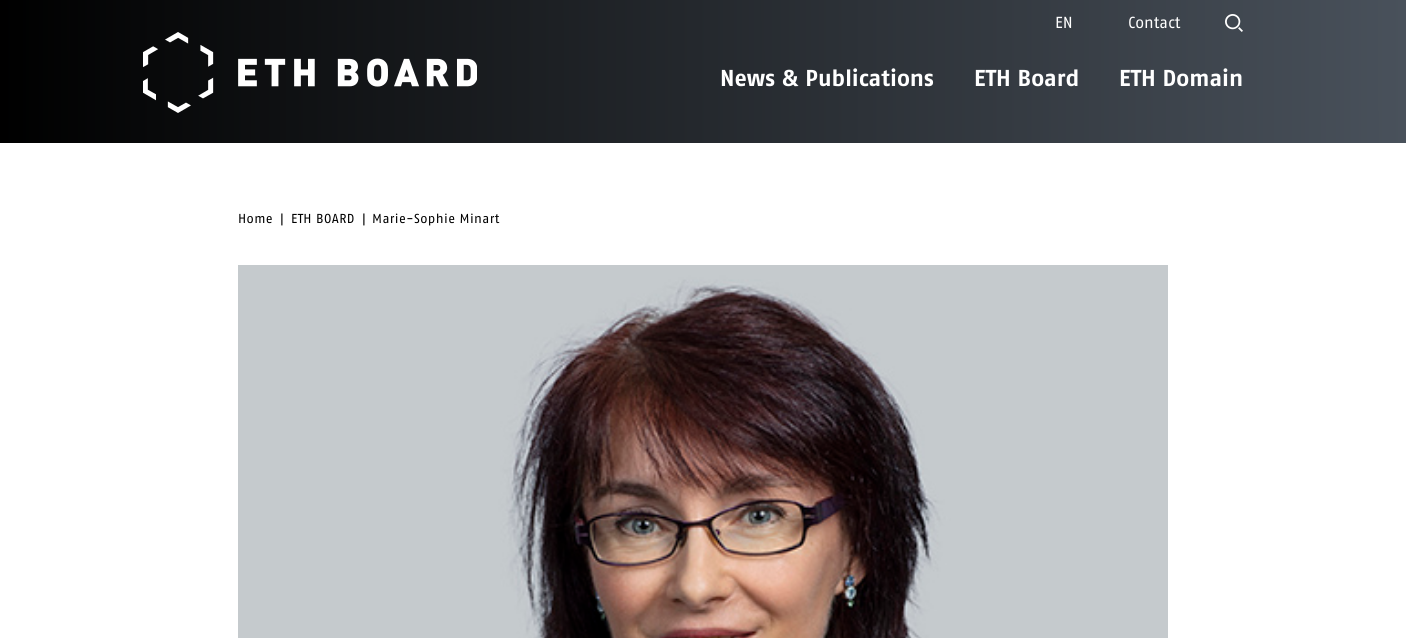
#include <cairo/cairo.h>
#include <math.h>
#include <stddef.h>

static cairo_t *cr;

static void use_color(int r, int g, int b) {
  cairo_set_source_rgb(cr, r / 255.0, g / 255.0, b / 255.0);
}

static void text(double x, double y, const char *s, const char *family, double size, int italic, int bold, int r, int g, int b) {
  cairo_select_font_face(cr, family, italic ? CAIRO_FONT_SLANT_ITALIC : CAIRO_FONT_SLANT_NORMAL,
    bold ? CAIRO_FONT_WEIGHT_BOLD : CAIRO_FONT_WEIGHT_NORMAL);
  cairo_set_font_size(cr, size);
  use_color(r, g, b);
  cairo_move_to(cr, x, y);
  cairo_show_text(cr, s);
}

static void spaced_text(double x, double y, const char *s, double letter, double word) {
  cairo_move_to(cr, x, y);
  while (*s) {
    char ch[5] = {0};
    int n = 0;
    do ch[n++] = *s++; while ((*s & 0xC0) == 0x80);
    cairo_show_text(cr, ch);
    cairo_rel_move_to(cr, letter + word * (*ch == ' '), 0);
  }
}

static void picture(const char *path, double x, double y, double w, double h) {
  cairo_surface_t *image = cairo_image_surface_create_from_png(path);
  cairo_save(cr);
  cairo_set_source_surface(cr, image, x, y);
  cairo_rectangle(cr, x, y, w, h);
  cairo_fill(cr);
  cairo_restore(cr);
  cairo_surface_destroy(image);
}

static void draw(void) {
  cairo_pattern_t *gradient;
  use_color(255, 255, 255);
  cairo_paint(cr);
  gradient = cairo_pattern_create_linear(0, 72, 1406, 71);
  cairo_pattern_add_color_stop_rgba(gradient, 0, 0, 0, 0, 1);
  cairo_pattern_add_color_stop_rgba(gradient, 1, 0.286, 0.318, 0.357, 1);
  cairo_set_source(cr, gradient);
  cairo_pattern_destroy(gradient);
  cairo_rectangle(cr, 0, 0, 1406, 143);
  cairo_fill(cr);
  picture("img_01.png", 143, 32, 334, 81);
  picture("img_02.png", 1225, 14, 18, 18);
  picture("img_03.png", 238, 265, 930, 373);
  text(1055, 28, "EN", "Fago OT", 16, 0, 0, 255, 255, 255);
  text(1128, 28, "Contact", "Fago OT", 16, 0, 0, 255, 255, 255);
  text(720, 86, "News & Publications", "Fago OT", 23, 0, 1, 255, 255, 255);
  text(974, 86, "ETH Board", "Fago OT", 23, 0, 1, 255, 255, 255);
  text(1119, 86, "ETH Domain", "Fago OT", 23, 0, 1, 255, 255, 255);
  cairo_select_font_face(cr, "Fago OT", CAIRO_FONT_SLANT_NORMAL, CAIRO_FONT_WEIGHT_NORMAL);
  cairo_set_font_size(cr, 13);
  use_color(0, 0, 0);
  spaced_text(238, 223, "Home", 0.4, 0);
  text(280, 224, "|", "Fago OT", 13, 0, 0, 0, 0, 0);
  spaced_text(291, 223, "ETH BOARD", 0.4, 0);
  text(362, 224, "|", "Fago OT", 13, 0, 0, 0, 0, 0);
  spaced_text(372, 223, "Marie-Sophie Minart", 0.4, 0);
}

int main(void) {
  cairo_surface_t *surface = cairo_image_surface_create(CAIRO_FORMAT_RGB24, 1406, 638);
  cr = cairo_create(surface);
  cairo_font_options_t *options = cairo_font_options_create();
  cairo_font_options_set_hint_metrics(options, CAIRO_HINT_METRICS_OFF);
  cairo_font_options_set_hint_style(options, CAIRO_HINT_STYLE_NONE);
  cairo_set_font_options(cr, options);
  cairo_set_miter_limit(cr, 4);
  draw();
  cairo_surface_write_to_png(surface, "out.png");
  cairo_font_options_destroy(options);
  cairo_destroy(cr);
  cairo_surface_destroy(surface);
  return 0;
}
